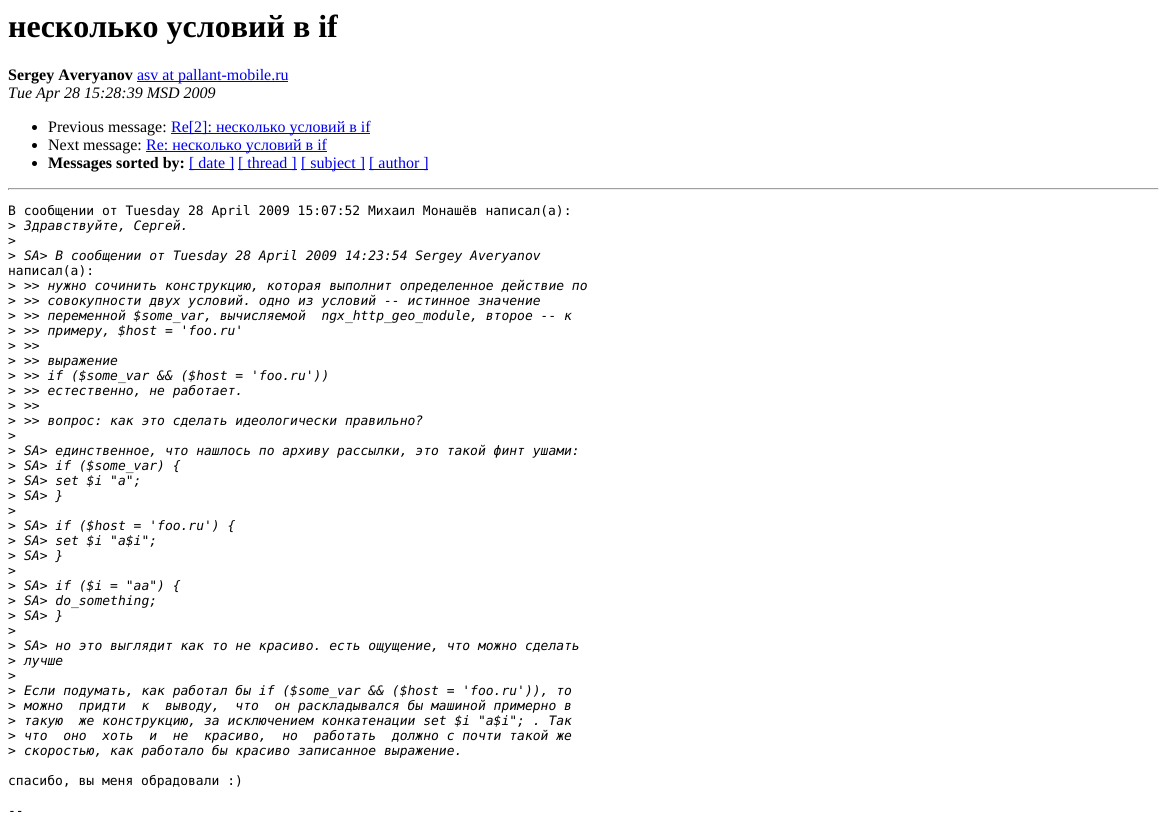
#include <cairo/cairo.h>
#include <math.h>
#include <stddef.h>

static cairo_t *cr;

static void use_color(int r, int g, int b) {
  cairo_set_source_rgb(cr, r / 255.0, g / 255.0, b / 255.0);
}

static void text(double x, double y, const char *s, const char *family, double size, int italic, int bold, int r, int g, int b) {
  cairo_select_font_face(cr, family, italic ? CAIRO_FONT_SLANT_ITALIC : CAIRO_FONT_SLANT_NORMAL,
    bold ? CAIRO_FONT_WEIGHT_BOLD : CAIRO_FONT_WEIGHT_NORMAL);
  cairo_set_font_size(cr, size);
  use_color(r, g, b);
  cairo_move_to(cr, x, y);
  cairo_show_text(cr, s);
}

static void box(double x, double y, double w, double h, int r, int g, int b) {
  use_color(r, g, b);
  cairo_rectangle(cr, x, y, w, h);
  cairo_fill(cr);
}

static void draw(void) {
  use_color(255, 255, 255);
  cairo_paint(cr);
  box(137, 81, 151, 1, 0, 0, 238);
  use_color(0, 0, 0);
  cairo_arc(cr, 34.5, 127.5, 2.5, 0, 2 * M_PI);
  cairo_fill(cr);
  box(171, 133, 199, 1, 0, 0, 238);
  use_color(0, 0, 0);
  cairo_arc(cr, 34.5, 145.5, 2.5, 0, 2 * M_PI);
  cairo_fill(cr);
  box(146, 151, 181, 1, 0, 0, 238);
  use_color(0, 0, 0);
  cairo_arc(cr, 34.5, 163.5, 2.5, 0, 2 * M_PI);
  cairo_fill(cr);
  box(189, 169, 45, 1, 0, 0, 238);
  box(238, 169, 59, 1, 0, 0, 238);
  box(301, 169, 64, 1, 0, 0, 238);
  box(369, 169, 59, 1, 0, 0, 238);
  box(8, 188, 1151, 1, 159, 159, 159);
  box(1158, 188, 1, 2, 238, 238, 238);
  box(8, 189, 1151, 1, 238, 238, 238);
  box(8, 188, 1, 2, 159, 159, 159);
  text(8, 37, "несколько условий в if", "Liberation Serif", 32, 0, 1, 0, 0, 0);
  text(8, 80, "Sergey Averyanov", "Liberation Serif", 16, 0, 1, 0, 0, 0);
  text(137, 80, "asv at pallant-mobile.ru", "Liberation Serif", 16, 0, 0, 0, 0, 238);
  text(8, 98, "Tue Apr 28 15:28:39 MSD 2009", "Liberation Serif", 16, 1, 0, 0, 0, 0);
  text(48, 132, "Previous message:", "Liberation Serif", 16, 0, 0, 0, 0, 0);
  text(171, 132, "Re[2]: несколько условий в if", "Liberation Serif", 16, 0, 0, 0, 0, 238);
  text(48, 150, "Next message:", "Liberation Serif", 16, 0, 0, 0, 0, 0);
  text(146, 150, "Re: несколько условий в if", "Liberation Serif", 16, 0, 0, 0, 0, 238);
  text(48, 168, "Messages sorted by:", "Liberation Serif", 16, 0, 1, 0, 0, 0);
  text(189, 168, "[ date ]", "Liberation Serif", 16, 0, 0, 0, 0, 238);
  text(238, 168, "[ thread ]", "Liberation Serif", 16, 0, 0, 0, 0, 238);
  text(301, 168, "[ subject ]", "Liberation Serif", 16, 0, 0, 0, 0, 238);
  text(369, 168, "[ author ]", "Liberation Serif", 16, 0, 0, 0, 0, 238);
  text(8, 215, "В сообщении от Tuesday 28 April 2009 15:07:52 Михаил Монашёв написал(а):", "DejaVu Sans Mono", 13, 0, 0, 0, 0, 0);
  text(8, 230, ">", "DejaVu Sans Mono", 13, 0, 0, 0, 0, 0);
  text(24, 230, "Здравствуйте, Сергей.", "DejaVu Sans Mono", 13, 1, 0, 0, 0, 0);
  text(8, 245, ">", "DejaVu Sans Mono", 13, 0, 0, 0, 0, 0);
  text(8, 260, ">", "DejaVu Sans Mono", 13, 0, 0, 0, 0, 0);
  text(24, 260, "SA> В сообщении от Tuesday 28 April 2009 14:23:54 Sergey Averyanov", "DejaVu Sans Mono", 13, 1, 0, 0, 0, 0);
  text(8, 275, "написал(а):", "DejaVu Sans Mono", 13, 0, 0, 0, 0, 0);
  text(8, 290, ">", "DejaVu Sans Mono", 13, 0, 0, 0, 0, 0);
  text(24, 290, ">> нужно сочинить конструкцию, которая выполнит определенное действие по", "DejaVu Sans Mono", 13, 1, 0, 0, 0, 0);
  text(8, 305, ">", "DejaVu Sans Mono", 13, 0, 0, 0, 0, 0);
  text(24, 305, ">> совокупности двух условий. одно из условий -- истинное значение", "DejaVu Sans Mono", 13, 1, 0, 0, 0, 0);
  text(8, 320, ">", "DejaVu Sans Mono", 13, 0, 0, 0, 0, 0);
  text(24, 320, ">> переменной $some_var, вычисляемой  ngx_http_geo_module, второе -- к", "DejaVu Sans Mono", 13, 1, 0, 0, 0, 0);
  text(8, 335, ">", "DejaVu Sans Mono", 13, 0, 0, 0, 0, 0);
  text(24, 335, ">> примеру, $host = 'foo.ru'", "DejaVu Sans Mono", 13, 1, 0, 0, 0, 0);
  text(8, 350, ">", "DejaVu Sans Mono", 13, 0, 0, 0, 0, 0);
  text(24, 350, ">>", "DejaVu Sans Mono", 13, 1, 0, 0, 0, 0);
  text(8, 365, ">", "DejaVu Sans Mono", 13, 0, 0, 0, 0, 0);
  text(24, 365, ">> выражение", "DejaVu Sans Mono", 13, 1, 0, 0, 0, 0);
  text(8, 380, ">", "DejaVu Sans Mono", 13, 0, 0, 0, 0, 0);
  text(24, 380, ">> if ($some_var && ($host = 'foo.ru'))", "DejaVu Sans Mono", 13, 1, 0, 0, 0, 0);
  text(8, 395, ">", "DejaVu Sans Mono", 13, 0, 0, 0, 0, 0);
  text(24, 395, ">> естественно, не работает.", "DejaVu Sans Mono", 13, 1, 0, 0, 0, 0);
  text(8, 410, ">", "DejaVu Sans Mono", 13, 0, 0, 0, 0, 0);
  text(24, 410, ">>", "DejaVu Sans Mono", 13, 1, 0, 0, 0, 0);
  text(8, 425, ">", "DejaVu Sans Mono", 13, 0, 0, 0, 0, 0);
  text(24, 425, ">> вопрос: как это сделать идеологически правильно?", "DejaVu Sans Mono", 13, 1, 0, 0, 0, 0);
  text(8, 440, ">", "DejaVu Sans Mono", 13, 0, 0, 0, 0, 0);
  text(8, 455, ">", "DejaVu Sans Mono", 13, 0, 0, 0, 0, 0);
  text(24, 455, "SA> единственное, что нашлось по архиву рассылки, это такой финт ушами:", "DejaVu Sans Mono", 13, 1, 0, 0, 0, 0);
  text(8, 470, ">", "DejaVu Sans Mono", 13, 0, 0, 0, 0, 0);
  text(24, 470, "SA> if ($some_var) {", "DejaVu Sans Mono", 13, 1, 0, 0, 0, 0);
  text(8, 485, ">", "DejaVu Sans Mono", 13, 0, 0, 0, 0, 0);
  text(24, 485, "SA> set $i \"a\";", "DejaVu Sans Mono", 13, 1, 0, 0, 0, 0);
  text(8, 500, ">", "DejaVu Sans Mono", 13, 0, 0, 0, 0, 0);
  text(24, 500, "SA> }", "DejaVu Sans Mono", 13, 1, 0, 0, 0, 0);
  text(8, 515, ">", "DejaVu Sans Mono", 13, 0, 0, 0, 0, 0);
  text(8, 530, ">", "DejaVu Sans Mono", 13, 0, 0, 0, 0, 0);
  text(24, 530, "SA> if ($host = 'foo.ru') {", "DejaVu Sans Mono", 13, 1, 0, 0, 0, 0);
  text(8, 545, ">", "DejaVu Sans Mono", 13, 0, 0, 0, 0, 0);
  text(24, 545, "SA> set $i \"a$i\";", "DejaVu Sans Mono", 13, 1, 0, 0, 0, 0);
  text(8, 560, ">", "DejaVu Sans Mono", 13, 0, 0, 0, 0, 0);
  text(24, 560, "SA> }", "DejaVu Sans Mono", 13, 1, 0, 0, 0, 0);
  text(8, 575, ">", "DejaVu Sans Mono", 13, 0, 0, 0, 0, 0);
  text(8, 590, ">", "DejaVu Sans Mono", 13, 0, 0, 0, 0, 0);
  text(24, 590, "SA> if ($i = \"aa\") {", "DejaVu Sans Mono", 13, 1, 0, 0, 0, 0);
  text(8, 605, ">", "DejaVu Sans Mono", 13, 0, 0, 0, 0, 0);
  text(24, 605, "SA> do_something;", "DejaVu Sans Mono", 13, 1, 0, 0, 0, 0);
  text(8, 620, ">", "DejaVu Sans Mono", 13, 0, 0, 0, 0, 0);
  text(24, 620, "SA> }", "DejaVu Sans Mono", 13, 1, 0, 0, 0, 0);
  text(8, 635, ">", "DejaVu Sans Mono", 13, 0, 0, 0, 0, 0);
  text(8, 650, ">", "DejaVu Sans Mono", 13, 0, 0, 0, 0, 0);
  text(24, 650, "SA> но это выглядит как то не красиво. есть ощущение, что можно сделать", "DejaVu Sans Mono", 13, 1, 0, 0, 0, 0);
  text(8, 665, ">", "DejaVu Sans Mono", 13, 0, 0, 0, 0, 0);
  text(24, 665, "лучше", "DejaVu Sans Mono", 13, 1, 0, 0, 0, 0);
  text(8, 680, ">", "DejaVu Sans Mono", 13, 0, 0, 0, 0, 0);
  text(8, 695, ">", "DejaVu Sans Mono", 13, 0, 0, 0, 0, 0);
  text(24, 695, "Если подумать, как работал бы if ($some_var && ($host = 'foo.ru')), то", "DejaVu Sans Mono", 13, 1, 0, 0, 0, 0);
  text(8, 710, ">", "DejaVu Sans Mono", 13, 0, 0, 0, 0, 0);
  text(24, 710, "можно  придти  к  выводу,  что  он раскладывался бы машиной примерно в", "DejaVu Sans Mono", 13, 1, 0, 0, 0, 0);
  text(8, 725, ">", "DejaVu Sans Mono", 13, 0, 0, 0, 0, 0);
  text(24, 725, "такую  же конструкцию, за исключением конкатенации set $i \"a$i\"; . Так", "DejaVu Sans Mono", 13, 1, 0, 0, 0, 0);
  text(8, 740, ">", "DejaVu Sans Mono", 13, 0, 0, 0, 0, 0);
  text(24, 740, "что  оно  хоть  и  не  красиво,  но  работать  должно с почти такой же", "DejaVu Sans Mono", 13, 1, 0, 0, 0, 0);
  text(8, 755, ">", "DejaVu Sans Mono", 13, 0, 0, 0, 0, 0);
  text(24, 755, "скоростью, как работало бы красиво записанное выражение.", "DejaVu Sans Mono", 13, 1, 0, 0, 0, 0);
  text(8, 785, "спасибо, вы меня обрадовали :)", "DejaVu Sans Mono", 13, 0, 0, 0, 0, 0);
  text(8, 815, "--", "DejaVu Sans Mono", 13, 0, 0, 0, 0, 0);
}

int main(void) {
  cairo_surface_t *surface = cairo_image_surface_create(CAIRO_FORMAT_RGB24, 1167, 819);
  cr = cairo_create(surface);
  cairo_font_options_t *options = cairo_font_options_create();
  cairo_font_options_set_hint_metrics(options, CAIRO_HINT_METRICS_OFF);
  cairo_font_options_set_hint_style(options, CAIRO_HINT_STYLE_NONE);
  cairo_set_font_options(cr, options);
  cairo_set_miter_limit(cr, 4);
  draw();
  cairo_surface_write_to_png(surface, "out.png");
  cairo_font_options_destroy(options);
  cairo_destroy(cr);
  cairo_surface_destroy(surface);
  return 0;
}
